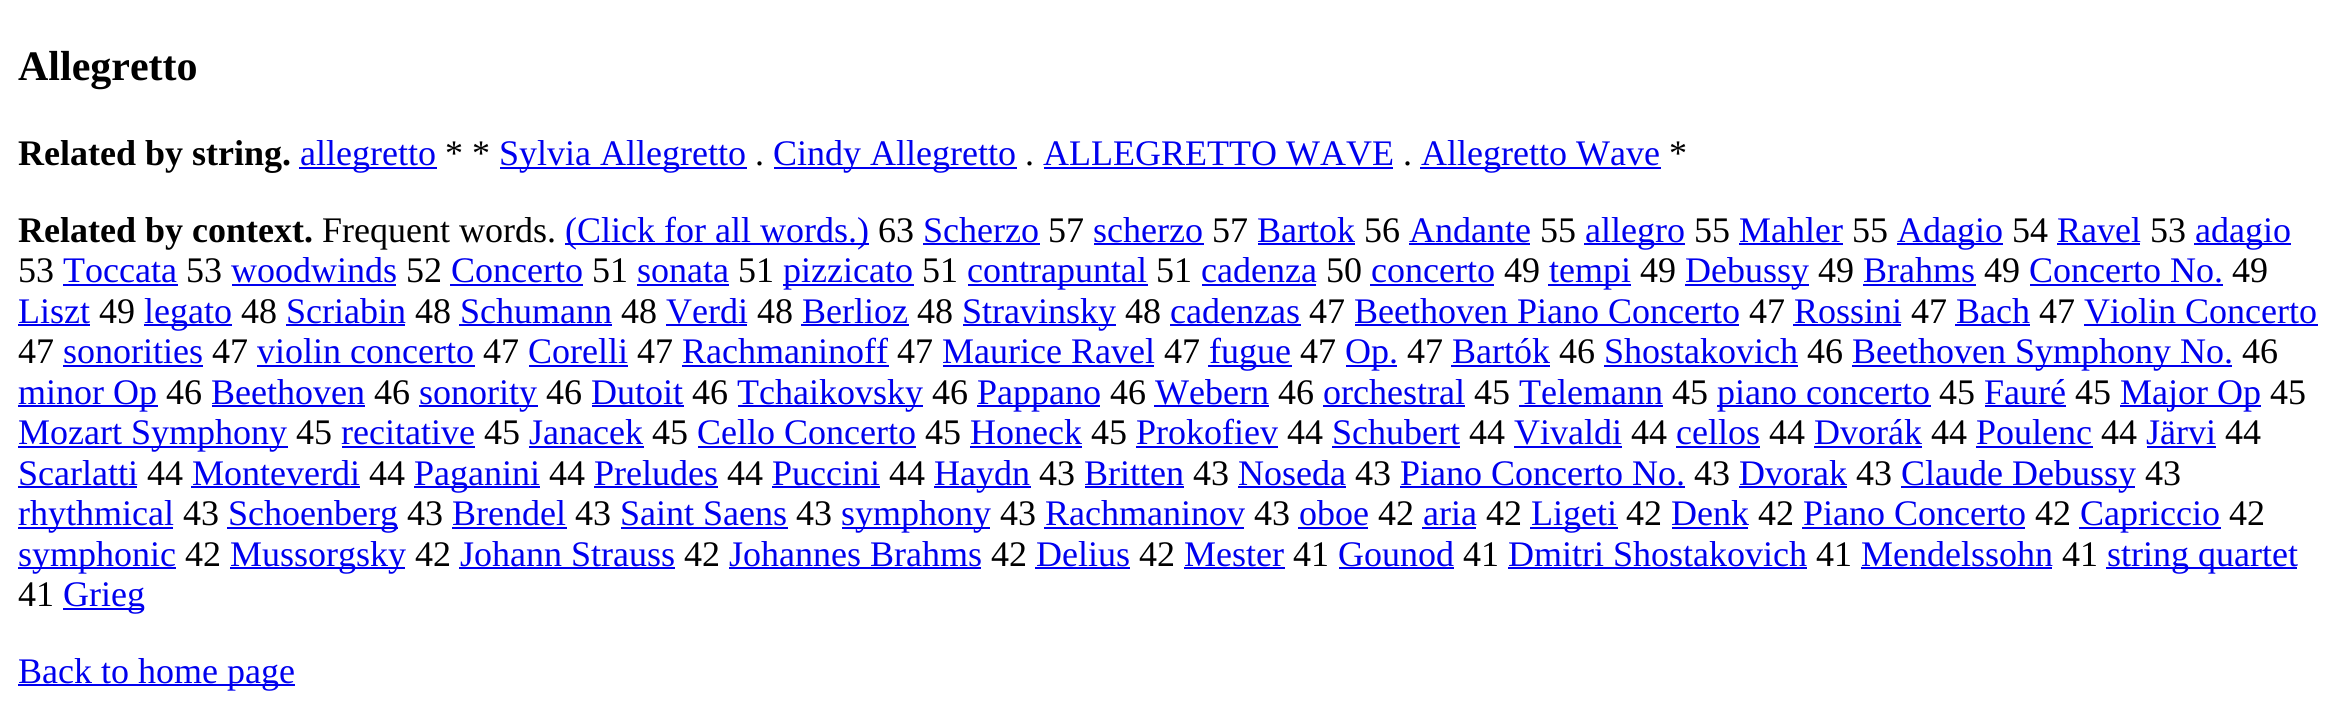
#include <cairo/cairo.h>
#include <math.h>
#include <stddef.h>

static cairo_t *cr;

static void use_color(int r, int g, int b) {
  cairo_set_source_rgb(cr, r / 255.0, g / 255.0, b / 255.0);
}

static void text(double x, double y, const char *s, const char *family, double size, int italic, int bold, int r, int g, int b) {
  cairo_select_font_face(cr, family, italic ? CAIRO_FONT_SLANT_ITALIC : CAIRO_FONT_SLANT_NORMAL,
    bold ? CAIRO_FONT_WEIGHT_BOLD : CAIRO_FONT_WEIGHT_NORMAL);
  cairo_set_font_size(cr, size);
  use_color(r, g, b);
  cairo_move_to(cr, x, y);
  cairo_show_text(cr, s);
}

static void box(double x, double y, double w, double h, int r, int g, int b) {
  use_color(r, g, b);
  cairo_rectangle(cr, x, y, w, h);
  cairo_fill(cr);
}

static void draw(void) {
  use_color(255, 255, 255);
  cairo_paint(cr);
  box(299, 167, 138, 2, 0, 0, 238);
  box(500, 167, 247, 2, 0, 0, 238);
  box(774, 167, 243, 2, 0, 0, 238);
  box(1044, 167, 349, 2, 0, 0, 238);
  box(1420, 167, 241, 2, 0, 0, 238);
  box(565, 243, 304, 2, 0, 0, 238);
  box(923, 243, 117, 2, 0, 0, 238);
  box(1094, 243, 110, 2, 0, 0, 238);
  box(1258, 243, 97, 2, 0, 0, 238);
  box(1409, 243, 121, 2, 0, 0, 238);
  box(1584, 243, 101, 2, 0, 0, 238);
  box(1739, 243, 104, 2, 0, 0, 238);
  box(1897, 243, 106, 2, 0, 0, 238);
  box(2057, 243, 83, 2, 0, 0, 238);
  box(2194, 243, 97, 2, 0, 0, 238);
  box(63, 284, 115, 2, 0, 0, 238);
  box(232, 284, 164, 2, 0, 0, 238);
  box(450, 284, 133, 2, 0, 0, 238);
  box(637, 284, 92, 2, 0, 0, 238);
  box(783, 284, 131, 2, 0, 0, 238);
  box(968, 284, 180, 2, 0, 0, 238);
  box(1202, 284, 114, 2, 0, 0, 238);
  box(1370, 284, 124, 2, 0, 0, 238);
  box(1548, 284, 83, 2, 0, 0, 238);
  box(1685, 284, 124, 2, 0, 0, 238);
  box(1863, 284, 113, 2, 0, 0, 238);
  box(2030, 284, 193, 2, 0, 0, 238);
  box(18, 324, 72, 2, 0, 0, 238);
  box(144, 324, 88, 2, 0, 0, 238);
  box(286, 324, 119, 2, 0, 0, 238);
  box(459, 324, 153, 2, 0, 0, 238);
  box(666, 324, 81, 2, 0, 0, 238);
  box(801, 324, 108, 2, 0, 0, 238);
  box(963, 324, 153, 2, 0, 0, 238);
  box(1170, 324, 131, 2, 0, 0, 238);
  box(1355, 324, 384, 2, 0, 0, 238);
  box(1793, 324, 108, 2, 0, 0, 238);
  box(1955, 324, 75, 2, 0, 0, 238);
  box(2084, 324, 234, 2, 0, 0, 238);
  box(63, 365, 140, 2, 0, 0, 238);
  box(257, 365, 218, 2, 0, 0, 238);
  box(529, 365, 99, 2, 0, 0, 238);
  box(682, 365, 207, 2, 0, 0, 238);
  box(943, 365, 211, 2, 0, 0, 238);
  box(1208, 365, 84, 2, 0, 0, 238);
  box(1346, 365, 51, 2, 0, 0, 238);
  box(1451, 365, 99, 2, 0, 0, 238);
  box(1604, 365, 194, 2, 0, 0, 238);
  box(1852, 365, 380, 2, 0, 0, 238);
  box(18, 405, 140, 2, 0, 0, 238);
  box(212, 405, 153, 2, 0, 0, 238);
  box(419, 405, 119, 2, 0, 0, 238);
  box(592, 405, 92, 2, 0, 0, 238);
  box(738, 405, 185, 2, 0, 0, 238);
  box(977, 405, 123, 2, 0, 0, 238);
  box(1154, 405, 115, 2, 0, 0, 238);
  box(1323, 405, 142, 2, 0, 0, 238);
  box(1519, 405, 144, 2, 0, 0, 238);
  box(1717, 405, 214, 2, 0, 0, 238);
  box(1985, 405, 81, 2, 0, 0, 238);
  box(2120, 405, 141, 2, 0, 0, 238);
  box(18, 446, 270, 2, 0, 0, 238);
  box(342, 446, 133, 2, 0, 0, 238);
  box(529, 446, 115, 2, 0, 0, 238);
  box(698, 446, 218, 2, 0, 0, 238);
  box(970, 446, 112, 2, 0, 0, 238);
  box(1136, 446, 142, 2, 0, 0, 238);
  box(1332, 446, 128, 2, 0, 0, 238);
  box(1514, 446, 108, 2, 0, 0, 238);
  box(1676, 446, 84, 2, 0, 0, 238);
  box(1814, 446, 108, 2, 0, 0, 238);
  box(1976, 446, 117, 2, 0, 0, 238);
  box(2147, 446, 69, 2, 0, 0, 238);
  box(18, 486, 119, 2, 0, 0, 238);
  box(191, 486, 169, 2, 0, 0, 238);
  box(414, 486, 126, 2, 0, 0, 238);
  box(594, 486, 124, 2, 0, 0, 238);
  box(772, 486, 108, 2, 0, 0, 238);
  box(934, 486, 97, 2, 0, 0, 238);
  box(1085, 486, 99, 2, 0, 0, 238);
  box(1238, 486, 108, 2, 0, 0, 238);
  box(1400, 486, 285, 2, 0, 0, 238);
  box(1739, 486, 108, 2, 0, 0, 238);
  box(1901, 486, 234, 2, 0, 0, 238);
  box(18, 527, 155, 2, 0, 0, 238);
  box(227, 527, 171, 2, 0, 0, 238);
  box(452, 527, 115, 2, 0, 0, 238);
  box(621, 527, 167, 2, 0, 0, 238);
  box(842, 527, 148, 2, 0, 0, 238);
  box(1044, 527, 200, 2, 0, 0, 238);
  box(1298, 527, 70, 2, 0, 0, 238);
  box(1422, 527, 54, 2, 0, 0, 238);
  box(1530, 527, 88, 2, 0, 0, 238);
  box(1672, 527, 76, 2, 0, 0, 238);
  box(1802, 527, 223, 2, 0, 0, 238);
  box(2079, 527, 142, 2, 0, 0, 238);
  box(18, 567, 158, 2, 0, 0, 238);
  box(230, 567, 175, 2, 0, 0, 238);
  box(459, 567, 216, 2, 0, 0, 238);
  box(729, 567, 252, 2, 0, 0, 238);
  box(1035, 567, 95, 2, 0, 0, 238);
  box(1184, 567, 101, 2, 0, 0, 238);
  box(1339, 567, 115, 2, 0, 0, 238);
  box(1508, 567, 299, 2, 0, 0, 238);
  box(1861, 567, 191, 2, 0, 0, 238);
  box(2106, 567, 191, 2, 0, 0, 238);
  box(63, 608, 81, 2, 0, 0, 238);
  box(18, 684, 277, 2, 0, 0, 238);
  text(18, 80, "Allegretto", "Liberation Serif", 42, 0, 1, 0, 0, 0);
  text(18, 165, "Related by string.", "Liberation Serif", 36, 0, 1, 0, 0, 0);
  text(300, 165, "allegretto", "Liberation Serif", 36, 0, 0, 0, 0, 238);
  text(445, 165, "* *", "Liberation Serif", 36, 0, 0, 0, 0, 0);
  text(499, 165, "Sylvia Allegretto", "Liberation Serif", 36, 0, 0, 0, 0, 238);
  text(773, 165, "Cindy Allegretto", "Liberation Serif", 36, 0, 0, 0, 0, 238);
  text(1043, 165, "ALLEGRETTO WAVE", "Liberation Serif", 36, 0, 0, 0, 0, 238);
  text(1421, 165, "Allegretto Wave", "Liberation Serif", 36, 0, 0, 0, 0, 238);
  text(1669, 165, "*", "Liberation Serif", 36, 0, 0, 0, 0, 0);
  text(755, 165, ".", "Liberation Serif", 36, 0, 0, 0, 0, 0);
  text(1025, 165, ".", "Liberation Serif", 36, 0, 0, 0, 0, 0);
  text(1403, 165, ".", "Liberation Serif", 36, 0, 0, 0, 0, 0);
  text(18, 242, "Related by context.", "Liberation Serif", 36, 0, 1, 0, 0, 0);
  text(322, 242, "Frequent words.", "Liberation Serif", 36, 0, 0, 0, 0, 0);
  text(565, 242, "(Click for all words.)", "Liberation Serif", 36, 0, 0, 0, 0, 238);
  text(878, 242, "63", "Liberation Serif", 36, 0, 0, 0, 0, 0);
  text(923, 242, "Scherzo", "Liberation Serif", 36, 0, 0, 0, 0, 238);
  text(1048, 242, "57", "Liberation Serif", 36, 0, 0, 0, 0, 0);
  text(1093, 242, "scherzo", "Liberation Serif", 36, 0, 0, 0, 0, 238);
  text(1212, 242, "57", "Liberation Serif", 36, 0, 0, 0, 0, 0);
  text(1257, 242, "Bartok", "Liberation Serif", 36, 0, 0, 0, 0, 238);
  text(1364, 242, "56", "Liberation Serif", 36, 0, 0, 0, 0, 0);
  text(1409, 242, "Andante", "Liberation Serif", 36, 0, 0, 0, 0, 238);
  text(1540, 242, "55", "Liberation Serif", 36, 0, 0, 0, 0, 0);
  text(1585, 242, "allegro", "Liberation Serif", 36, 0, 0, 0, 0, 238);
  text(1694, 242, "55", "Liberation Serif", 36, 0, 0, 0, 0, 0);
  text(1739, 242, "Mahler", "Liberation Serif", 36, 0, 0, 0, 0, 238);
  text(1852, 242, "55", "Liberation Serif", 36, 0, 0, 0, 0, 0);
  text(1897, 242, "Adagio", "Liberation Serif", 36, 0, 0, 0, 0, 238);
  text(2012, 242, "54", "Liberation Serif", 36, 0, 0, 0, 0, 0);
  text(2057, 242, "Ravel", "Liberation Serif", 36, 0, 0, 0, 0, 238);
  text(2150, 242, "53", "Liberation Serif", 36, 0, 0, 0, 0, 0);
  text(2195, 242, "adagio", "Liberation Serif", 36, 0, 0, 0, 0, 238);
  text(18, 282, "53", "Liberation Serif", 36, 0, 0, 0, 0, 0);
  text(63, 282, "Toccata", "Liberation Serif", 36, 0, 0, 0, 0, 238);
  text(186, 282, "53", "Liberation Serif", 36, 0, 0, 0, 0, 0);
  text(231, 282, "woodwinds", "Liberation Serif", 36, 0, 0, 0, 0, 238);
  text(406, 282, "52", "Liberation Serif", 36, 0, 0, 0, 0, 0);
  text(451, 282, "Concerto", "Liberation Serif", 36, 0, 0, 0, 0, 238);
  text(592, 282, "51", "Liberation Serif", 36, 0, 0, 0, 0, 0);
  text(637, 282, "sonata", "Liberation Serif", 36, 0, 0, 0, 0, 238);
  text(738, 282, "51", "Liberation Serif", 36, 0, 0, 0, 0, 0);
  text(783, 282, "pizzicato", "Liberation Serif", 36, 0, 0, 0, 0, 238);
  text(922, 282, "51", "Liberation Serif", 36, 0, 0, 0, 0, 0);
  text(967, 282, "contrapuntal", "Liberation Serif", 36, 0, 0, 0, 0, 238);
  text(1156, 282, "51", "Liberation Serif", 36, 0, 0, 0, 0, 0);
  text(1201, 282, "cadenza", "Liberation Serif", 36, 0, 0, 0, 0, 238);
  text(1326, 282, "50", "Liberation Serif", 36, 0, 0, 0, 0, 0);
  text(1371, 282, "concerto", "Liberation Serif", 36, 0, 0, 0, 0, 238);
  text(1504, 282, "49", "Liberation Serif", 36, 0, 0, 0, 0, 0);
  text(1549, 282, "tempi", "Liberation Serif", 36, 0, 0, 0, 0, 238);
  text(1640, 282, "49", "Liberation Serif", 36, 0, 0, 0, 0, 0);
  text(1685, 282, "Debussy", "Liberation Serif", 36, 0, 0, 0, 0, 238);
  text(1818, 282, "49", "Liberation Serif", 36, 0, 0, 0, 0, 0);
  text(1863, 282, "Brahms", "Liberation Serif", 36, 0, 0, 0, 0, 238);
  text(1984, 282, "49", "Liberation Serif", 36, 0, 0, 0, 0, 0);
  text(2029, 282, "Concerto No.", "Liberation Serif", 36, 0, 0, 0, 0, 238);
  text(2232, 282, "49", "Liberation Serif", 36, 0, 0, 0, 0, 0);
  text(18, 323, "Liszt", "Liberation Serif", 36, 0, 0, 0, 0, 238);
  text(99, 323, "49", "Liberation Serif", 36, 0, 0, 0, 0, 0);
  text(144, 323, "legato", "Liberation Serif", 36, 0, 0, 0, 0, 238);
  text(241, 323, "48", "Liberation Serif", 36, 0, 0, 0, 0, 0);
  text(286, 323, "Scriabin", "Liberation Serif", 36, 0, 0, 0, 0, 238);
  text(415, 323, "48", "Liberation Serif", 36, 0, 0, 0, 0, 0);
  text(460, 323, "Schumann", "Liberation Serif", 36, 0, 0, 0, 0, 238);
  text(621, 323, "48", "Liberation Serif", 36, 0, 0, 0, 0, 0);
  text(666, 323, "Verdi", "Liberation Serif", 36, 0, 0, 0, 0, 238);
  text(757, 323, "48", "Liberation Serif", 36, 0, 0, 0, 0, 0);
  text(802, 323, "Berlioz", "Liberation Serif", 36, 0, 0, 0, 0, 238);
  text(917, 323, "48", "Liberation Serif", 36, 0, 0, 0, 0, 0);
  text(962, 323, "Stravinsky", "Liberation Serif", 36, 0, 0, 0, 0, 238);
  text(1125, 323, "48", "Liberation Serif", 36, 0, 0, 0, 0, 0);
  text(1170, 323, "cadenzas", "Liberation Serif", 36, 0, 0, 0, 0, 238);
  text(1309, 323, "47", "Liberation Serif", 36, 0, 0, 0, 0, 0);
  text(1354, 323, "Beethoven Piano Concerto", "Liberation Serif", 36, 0, 0, 0, 0, 238);
  text(1749, 323, "47", "Liberation Serif", 36, 0, 0, 0, 0, 0);
  text(1794, 323, "Rossini", "Liberation Serif", 36, 0, 0, 0, 0, 238);
  text(1911, 323, "47", "Liberation Serif", 36, 0, 0, 0, 0, 0);
  text(1956, 323, "Bach", "Liberation Serif", 36, 0, 0, 0, 0, 238);
  text(2039, 323, "47", "Liberation Serif", 36, 0, 0, 0, 0, 0);
  text(2084, 323, "Violin Concerto", "Liberation Serif", 36, 0, 0, 0, 0, 238);
  text(18, 363, "47", "Liberation Serif", 36, 0, 0, 0, 0, 0);
  text(63, 363, "sonorities", "Liberation Serif", 36, 0, 0, 0, 0, 238);
  text(212, 363, "47", "Liberation Serif", 36, 0, 0, 0, 0, 0);
  text(257, 363, "violin concerto", "Liberation Serif", 36, 0, 0, 0, 0, 238);
  text(483, 363, "47", "Liberation Serif", 36, 0, 0, 0, 0, 0);
  text(528, 363, "Corelli", "Liberation Serif", 36, 0, 0, 0, 0, 238);
  text(637, 363, "47", "Liberation Serif", 36, 0, 0, 0, 0, 0);
  text(682, 363, "Rachmaninoff", "Liberation Serif", 36, 0, 0, 0, 0, 238);
  text(897, 363, "47", "Liberation Serif", 36, 0, 0, 0, 0, 0);
  text(942, 363, "Maurice Ravel", "Liberation Serif", 36, 0, 0, 0, 0, 238);
  text(1164, 363, "47", "Liberation Serif", 36, 0, 0, 0, 0, 0);
  text(1209, 363, "fugue", "Liberation Serif", 36, 0, 0, 0, 0, 238);
  text(1300, 363, "47", "Liberation Serif", 36, 0, 0, 0, 0, 0);
  text(1345, 363, "Op.", "Liberation Serif", 36, 0, 0, 0, 0, 238);
  text(1407, 363, "47", "Liberation Serif", 36, 0, 0, 0, 0, 0);
  text(1452, 363, "Bartók", "Liberation Serif", 36, 0, 0, 0, 0, 238);
  text(1559, 363, "46", "Liberation Serif", 36, 0, 0, 0, 0, 0);
  text(1604, 363, "Shostakovich", "Liberation Serif", 36, 0, 0, 0, 0, 238);
  text(1807, 363, "46", "Liberation Serif", 36, 0, 0, 0, 0, 0);
  text(1852, 363, "Beethoven Symphony No.", "Liberation Serif", 36, 0, 0, 0, 0, 238);
  text(2242, 363, "46", "Liberation Serif", 36, 0, 0, 0, 0, 0);
  text(18, 404, "minor Op", "Liberation Serif", 36, 0, 0, 0, 0, 238);
  text(166, 404, "46", "Liberation Serif", 36, 0, 0, 0, 0, 0);
  text(211, 404, "Beethoven", "Liberation Serif", 36, 0, 0, 0, 0, 238);
  text(374, 404, "46", "Liberation Serif", 36, 0, 0, 0, 0, 0);
  text(419, 404, "sonority", "Liberation Serif", 36, 0, 0, 0, 0, 238);
  text(546, 404, "46", "Liberation Serif", 36, 0, 0, 0, 0, 0);
  text(591, 404, "Dutoit", "Liberation Serif", 36, 0, 0, 0, 0, 238);
  text(692, 404, "46", "Liberation Serif", 36, 0, 0, 0, 0, 0);
  text(737, 404, "Tchaikovsky", "Liberation Serif", 36, 0, 0, 0, 0, 238);
  text(932, 404, "46", "Liberation Serif", 36, 0, 0, 0, 0, 0);
  text(977, 404, "Pappano", "Liberation Serif", 36, 0, 0, 0, 0, 238);
  text(1110, 404, "46", "Liberation Serif", 36, 0, 0, 0, 0, 0);
  text(1155, 404, "Webern", "Liberation Serif", 36, 0, 0, 0, 0, 238);
  text(1278, 404, "46", "Liberation Serif", 36, 0, 0, 0, 0, 0);
  text(1323, 404, "orchestral", "Liberation Serif", 36, 0, 0, 0, 0, 238);
  text(1474, 404, "45", "Liberation Serif", 36, 0, 0, 0, 0, 0);
  text(1519, 404, "Telemann", "Liberation Serif", 36, 0, 0, 0, 0, 238);
  text(1672, 404, "45", "Liberation Serif", 36, 0, 0, 0, 0, 0);
  text(1717, 404, "piano concerto", "Liberation Serif", 36, 0, 0, 0, 0, 238);
  text(1939, 404, "45", "Liberation Serif", 36, 0, 0, 0, 0, 0);
  text(1984, 404, "Fauré", "Liberation Serif", 36, 0, 0, 0, 0, 238);
  text(2075, 404, "45", "Liberation Serif", 36, 0, 0, 0, 0, 0);
  text(2120, 404, "Major Op", "Liberation Serif", 36, 0, 0, 0, 0, 238);
  text(2270, 404, "45", "Liberation Serif", 36, 0, 0, 0, 0, 0);
  text(18, 444, "Mozart Symphony", "Liberation Serif", 36, 0, 0, 0, 0, 238);
  text(296, 444, "45", "Liberation Serif", 36, 0, 0, 0, 0, 0);
  text(341, 444, "recitative", "Liberation Serif", 36, 0, 0, 0, 0, 238);
  text(484, 444, "45", "Liberation Serif", 36, 0, 0, 0, 0, 0);
  text(529, 444, "Janacek", "Liberation Serif", 36, 0, 0, 0, 0, 238);
  text(652, 444, "45", "Liberation Serif", 36, 0, 0, 0, 0, 0);
  text(697, 444, "Cello Concerto", "Liberation Serif", 36, 0, 0, 0, 0, 238);
  text(925, 444, "45", "Liberation Serif", 36, 0, 0, 0, 0, 0);
  text(970, 444, "Honeck", "Liberation Serif", 36, 0, 0, 0, 0, 238);
  text(1091, 444, "45", "Liberation Serif", 36, 0, 0, 0, 0, 0);
  text(1136, 444, "Prokofiev", "Liberation Serif", 36, 0, 0, 0, 0, 238);
  text(1287, 444, "44", "Liberation Serif", 36, 0, 0, 0, 0, 0);
  text(1332, 444, "Schubert", "Liberation Serif", 36, 0, 0, 0, 0, 238);
  text(1469, 444, "44", "Liberation Serif", 36, 0, 0, 0, 0, 0);
  text(1514, 444, "Vivaldi", "Liberation Serif", 36, 0, 0, 0, 0, 238);
  text(1631, 444, "44", "Liberation Serif", 36, 0, 0, 0, 0, 0);
  text(1676, 444, "cellos", "Liberation Serif", 36, 0, 0, 0, 0, 238);
  text(1769, 444, "44", "Liberation Serif", 36, 0, 0, 0, 0, 0);
  text(1814, 444, "Dvorák", "Liberation Serif", 36, 0, 0, 0, 0, 238);
  text(1931, 444, "44", "Liberation Serif", 36, 0, 0, 0, 0, 0);
  text(1976, 444, "Poulenc", "Liberation Serif", 36, 0, 0, 0, 0, 238);
  text(2101, 444, "44", "Liberation Serif", 36, 0, 0, 0, 0, 0);
  text(2146, 444, "Järvi", "Liberation Serif", 36, 0, 0, 0, 0, 238);
  text(2225, 444, "44", "Liberation Serif", 36, 0, 0, 0, 0, 0);
  text(18, 485, "Scarlatti", "Liberation Serif", 36, 0, 0, 0, 0, 238);
  text(147, 485, "44", "Liberation Serif", 36, 0, 0, 0, 0, 0);
  text(192, 485, "Monteverdi", "Liberation Serif", 36, 0, 0, 0, 0, 238);
  text(369, 485, "44", "Liberation Serif", 36, 0, 0, 0, 0, 0);
  text(414, 485, "Paganini", "Liberation Serif", 36, 0, 0, 0, 0, 238);
  text(549, 485, "44", "Liberation Serif", 36, 0, 0, 0, 0, 0);
  text(594, 485, "Preludes", "Liberation Serif", 36, 0, 0, 0, 0, 238);
  text(727, 485, "44", "Liberation Serif", 36, 0, 0, 0, 0, 0);
  text(772, 485, "Puccini", "Liberation Serif", 36, 0, 0, 0, 0, 238);
  text(889, 485, "44", "Liberation Serif", 36, 0, 0, 0, 0, 0);
  text(934, 485, "Haydn", "Liberation Serif", 36, 0, 0, 0, 0, 238);
  text(1039, 485, "43", "Liberation Serif", 36, 0, 0, 0, 0, 0);
  text(1084, 485, "Britten", "Liberation Serif", 36, 0, 0, 0, 0, 238);
  text(1193, 485, "43", "Liberation Serif", 36, 0, 0, 0, 0, 0);
  text(1238, 485, "Noseda", "Liberation Serif", 36, 0, 0, 0, 0, 238);
  text(1355, 485, "43", "Liberation Serif", 36, 0, 0, 0, 0, 0);
  text(1400, 485, "Piano Concerto No.", "Liberation Serif", 36, 0, 0, 0, 0, 238);
  text(1694, 485, "43", "Liberation Serif", 36, 0, 0, 0, 0, 0);
  text(1739, 485, "Dvorak", "Liberation Serif", 36, 0, 0, 0, 0, 238);
  text(1856, 485, "43", "Liberation Serif", 36, 0, 0, 0, 0, 0);
  text(1901, 485, "Claude Debussy", "Liberation Serif", 36, 0, 0, 0, 0, 238);
  text(2145, 485, "43", "Liberation Serif", 36, 0, 0, 0, 0, 0);
  text(18, 525, "rhythmical", "Liberation Serif", 36, 0, 0, 0, 0, 238);
  text(183, 525, "43", "Liberation Serif", 36, 0, 0, 0, 0, 0);
  text(228, 525, "Schoenberg", "Liberation Serif", 36, 0, 0, 0, 0, 238);
  text(407, 525, "43", "Liberation Serif", 36, 0, 0, 0, 0, 0);
  text(452, 525, "Brendel", "Liberation Serif", 36, 0, 0, 0, 0, 238);
  text(575, 525, "43", "Liberation Serif", 36, 0, 0, 0, 0, 0);
  text(620, 525, "Saint Saens", "Liberation Serif", 36, 0, 0, 0, 0, 238);
  text(796, 525, "43", "Liberation Serif", 36, 0, 0, 0, 0, 0);
  text(841, 525, "symphony", "Liberation Serif", 36, 0, 0, 0, 0, 238);
  text(1000, 525, "43", "Liberation Serif", 36, 0, 0, 0, 0, 0);
  text(1045, 525, "Rachmaninov", "Liberation Serif", 36, 0, 0, 0, 0, 238);
  text(1254, 525, "43", "Liberation Serif", 36, 0, 0, 0, 0, 0);
  text(1299, 525, "oboe", "Liberation Serif", 36, 0, 0, 0, 0, 238);
  text(1378, 525, "42", "Liberation Serif", 36, 0, 0, 0, 0, 0);
  text(1423, 525, "aria", "Liberation Serif", 36, 0, 0, 0, 0, 238);
  text(1486, 525, "42", "Liberation Serif", 36, 0, 0, 0, 0, 0);
  text(1531, 525, "Ligeti", "Liberation Serif", 36, 0, 0, 0, 0, 238);
  text(1626, 525, "42", "Liberation Serif", 36, 0, 0, 0, 0, 0);
  text(1671, 525, "Denk", "Liberation Serif", 36, 0, 0, 0, 0, 238);
  text(1758, 525, "42", "Liberation Serif", 36, 0, 0, 0, 0, 0);
  text(1803, 525, "Piano Concerto", "Liberation Serif", 36, 0, 0, 0, 0, 238);
  text(2035, 525, "42", "Liberation Serif", 36, 0, 0, 0, 0, 0);
  text(2080, 525, "Capriccio", "Liberation Serif", 36, 0, 0, 0, 0, 238);
  text(2229, 525, "42", "Liberation Serif", 36, 0, 0, 0, 0, 0);
  text(18, 566, "symphonic", "Liberation Serif", 36, 0, 0, 0, 0, 238);
  text(185, 566, "42", "Liberation Serif", 36, 0, 0, 0, 0, 0);
  text(230, 566, "Mussorgsky", "Liberation Serif", 36, 0, 0, 0, 0, 238);
  text(415, 566, "42", "Liberation Serif", 36, 0, 0, 0, 0, 0);
  text(460, 566, "Johann Strauss", "Liberation Serif", 36, 0, 0, 0, 0, 238);
  text(684, 566, "42", "Liberation Serif", 36, 0, 0, 0, 0, 0);
  text(729, 566, "Johannes Brahms", "Liberation Serif", 36, 0, 0, 0, 0, 238);
  text(991, 566, "42", "Liberation Serif", 36, 0, 0, 0, 0, 0);
  text(1036, 566, "Delius", "Liberation Serif", 36, 0, 0, 0, 0, 238);
  text(1139, 566, "42", "Liberation Serif", 36, 0, 0, 0, 0, 0);
  text(1184, 566, "Mester", "Liberation Serif", 36, 0, 0, 0, 0, 238);
  text(1293, 566, "41", "Liberation Serif", 36, 0, 0, 0, 0, 0);
  text(1338, 566, "Gounod", "Liberation Serif", 36, 0, 0, 0, 0, 238);
  text(1463, 566, "41", "Liberation Serif", 36, 0, 0, 0, 0, 0);
  text(1508, 566, "Dmitri Shostakovich", "Liberation Serif", 36, 0, 0, 0, 0, 238);
  text(1816, 566, "41", "Liberation Serif", 36, 0, 0, 0, 0, 0);
  text(1861, 566, "Mendelssohn", "Liberation Serif", 36, 0, 0, 0, 0, 238);
  text(2062, 566, "41", "Liberation Serif", 36, 0, 0, 0, 0, 0);
  text(2107, 566, "string quartet", "Liberation Serif", 36, 0, 0, 0, 0, 238);
  text(18, 606, "41", "Liberation Serif", 36, 0, 0, 0, 0, 0);
  text(63, 606, "Grieg", "Liberation Serif", 36, 0, 0, 0, 0, 238);
  text(18, 683, "Back to home page", "Liberation Serif", 36, 0, 0, 0, 0, 238);
}

int main(void) {
  cairo_surface_t *surface = cairo_image_surface_create(CAIRO_FORMAT_RGB24, 2346, 715);
  cr = cairo_create(surface);
  cairo_font_options_t *options = cairo_font_options_create();
  cairo_font_options_set_hint_metrics(options, CAIRO_HINT_METRICS_OFF);
  cairo_font_options_set_hint_style(options, CAIRO_HINT_STYLE_NONE);
  cairo_set_font_options(cr, options);
  cairo_set_miter_limit(cr, 4);
  draw();
  cairo_surface_write_to_png(surface, "out.png");
  cairo_font_options_destroy(options);
  cairo_destroy(cr);
  cairo_surface_destroy(surface);
  return 0;
}
